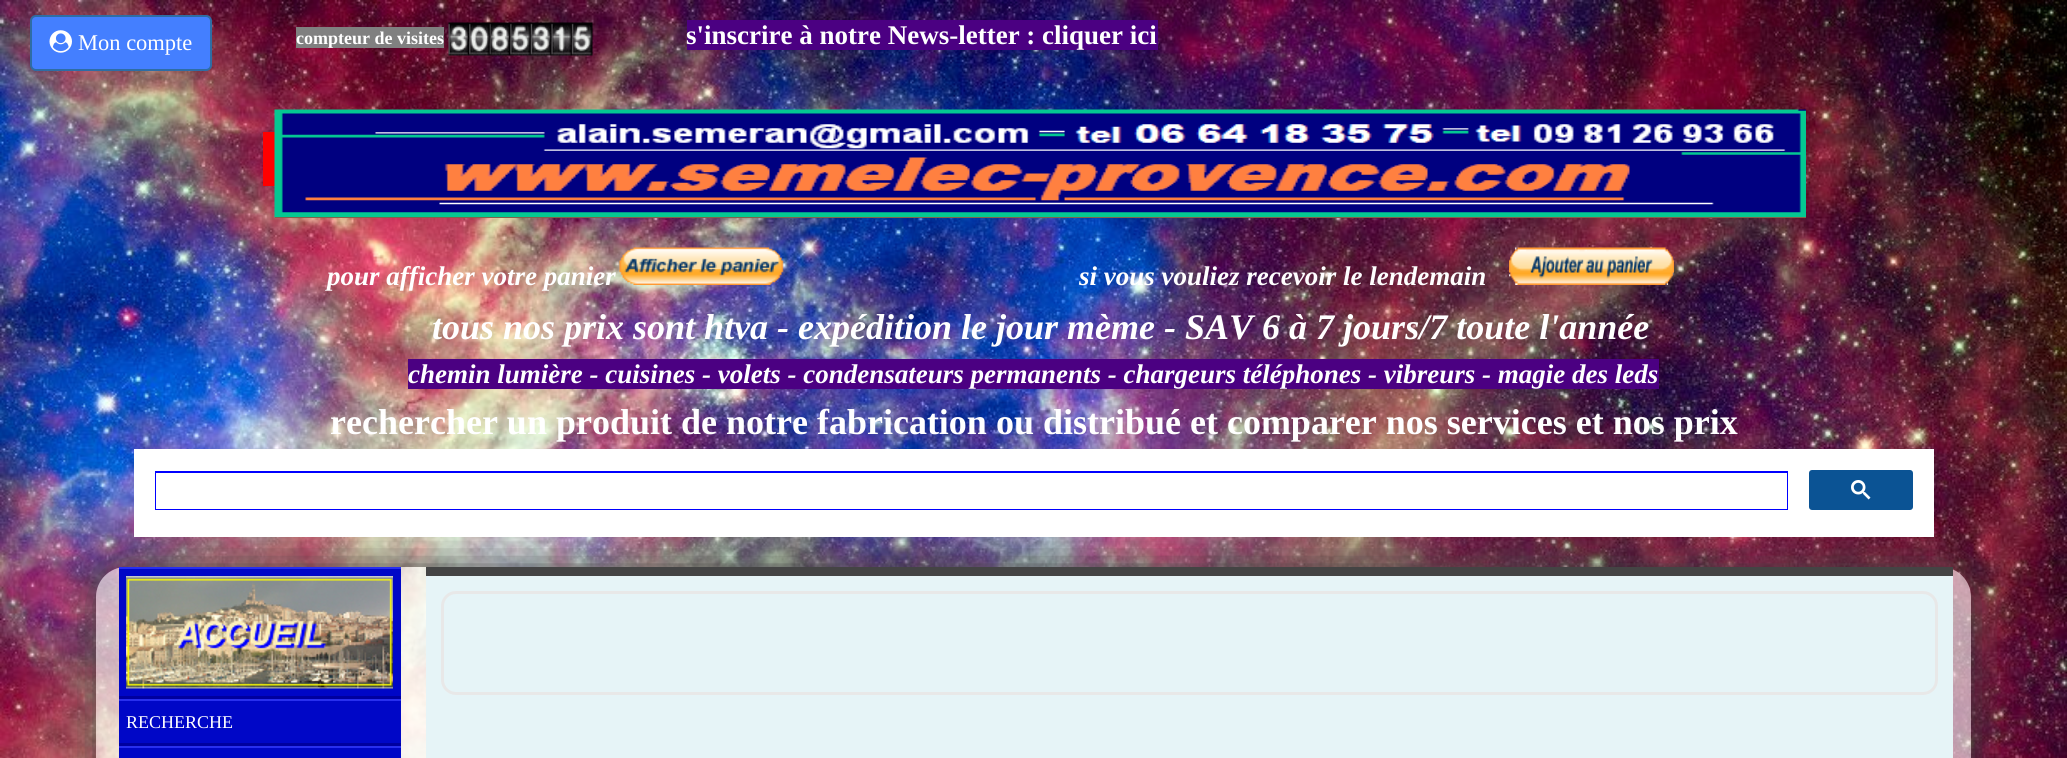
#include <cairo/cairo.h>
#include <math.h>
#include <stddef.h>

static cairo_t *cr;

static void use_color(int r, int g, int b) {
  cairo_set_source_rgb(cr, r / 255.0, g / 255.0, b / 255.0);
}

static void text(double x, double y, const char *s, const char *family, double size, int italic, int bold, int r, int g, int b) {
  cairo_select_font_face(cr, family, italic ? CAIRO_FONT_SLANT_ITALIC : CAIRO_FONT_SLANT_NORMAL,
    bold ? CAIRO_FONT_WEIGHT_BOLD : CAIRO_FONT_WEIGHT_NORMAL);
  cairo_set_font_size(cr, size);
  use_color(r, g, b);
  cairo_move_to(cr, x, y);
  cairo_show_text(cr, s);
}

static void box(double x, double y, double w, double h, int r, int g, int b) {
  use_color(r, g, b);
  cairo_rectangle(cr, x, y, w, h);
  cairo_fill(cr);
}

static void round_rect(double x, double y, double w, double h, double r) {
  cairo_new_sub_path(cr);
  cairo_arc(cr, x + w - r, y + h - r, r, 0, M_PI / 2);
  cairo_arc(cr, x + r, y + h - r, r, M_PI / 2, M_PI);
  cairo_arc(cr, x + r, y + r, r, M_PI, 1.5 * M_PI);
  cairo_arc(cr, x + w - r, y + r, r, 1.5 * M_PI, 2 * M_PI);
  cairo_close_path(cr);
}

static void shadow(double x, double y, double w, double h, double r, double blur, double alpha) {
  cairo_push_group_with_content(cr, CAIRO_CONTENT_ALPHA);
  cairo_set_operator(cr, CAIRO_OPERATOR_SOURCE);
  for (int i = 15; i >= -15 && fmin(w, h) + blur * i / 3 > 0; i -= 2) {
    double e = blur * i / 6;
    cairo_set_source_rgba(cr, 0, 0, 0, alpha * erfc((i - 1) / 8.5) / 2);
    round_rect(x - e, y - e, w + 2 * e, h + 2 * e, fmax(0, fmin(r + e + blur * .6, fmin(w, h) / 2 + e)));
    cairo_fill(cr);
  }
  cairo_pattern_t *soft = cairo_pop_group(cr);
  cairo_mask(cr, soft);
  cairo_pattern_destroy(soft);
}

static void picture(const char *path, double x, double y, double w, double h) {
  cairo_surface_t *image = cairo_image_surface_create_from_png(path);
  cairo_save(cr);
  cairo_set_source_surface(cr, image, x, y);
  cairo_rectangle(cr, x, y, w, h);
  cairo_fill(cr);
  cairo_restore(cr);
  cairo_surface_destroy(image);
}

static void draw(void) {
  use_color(255, 255, 255);
  cairo_paint(cr);
  picture("img_02.png", 0, 0, 2067, 758);
  cairo_set_source_rgba(cr, 0, 0, 0, 0.5);
  cairo_rectangle(cr, 2013, 0, 24, 24);
  cairo_fill(cr);
  use_color(68, 127, 255);
  round_rect(31, 16, 180, 54, 5);
  cairo_fill_preserve(cr);
  use_color(46, 109, 164);
  cairo_stroke(cr);
  picture("img_01.png", 49, 30, 23, 23);
  box(296, 27, 148, 21, 128, 128, 128);
  picture("img_03.png", 448, 22, 145, 34);
  box(687, 20, 471, 30, 75, 0, 130);
  box(263, 132, 12, 54, 255, 0, 0);
  box(275, 217, 1531, 1, 255, 0, 0);
  picture("img_04.png", 274, 109, 1532, 109);
  picture("img_05.png", 619, 247, 165, 38);
  picture("img_06.png", 1509, 247, 165, 38);
  box(408, 359, 1251, 30, 75, 0, 130);
  cairo_save(cr);
  cairo_set_fill_rule(cr, CAIRO_FILL_RULE_EVEN_ODD);
  cairo_new_path(cr);
  cairo_move_to(cr, 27, 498);
  cairo_line_to(cr, 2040, 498);
  cairo_line_to(cr, 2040, 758);
  cairo_line_to(cr, 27, 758);
  cairo_close_path(cr);
  cairo_move_to(cr, 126, 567);
  cairo_line_to(cr, 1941, 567);
  cairo_curve_to(cr, 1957.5, 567, 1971, 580.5, 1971, 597);
  cairo_line_to(cr, 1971, 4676);
  cairo_curve_to(cr, 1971, 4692.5, 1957.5, 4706, 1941, 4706);
  cairo_line_to(cr, 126, 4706);
  cairo_curve_to(cr, 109.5, 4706, 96, 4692.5, 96, 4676);
  cairo_line_to(cr, 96, 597);
  cairo_curve_to(cr, 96, 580.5, 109.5, 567, 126, 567);
  cairo_close_path(cr);
  cairo_clip(cr);
  use_color(68, 68, 68);
  shadow(96, 567, 1875, 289, 30, 22.5, 1);
  cairo_restore(cr);
  box(134, 449, 1800, 88, 255, 255, 255);
  cairo_rectangle(cr, 156, 472, 1631, 37);
  use_color(0, 0, 255);
  cairo_stroke(cr);
  box(156, 473, 1631, 36, 255, 255, 255);
  use_color(11, 83, 148);
  round_rect(1810, 471, 102, 38, 2);
  cairo_fill_preserve(cr);
  cairo_stroke(cr);
  picture("img_07.png", 1851, 480, 20, 20);
  cairo_set_source_rgba(cr, 1, 1, 1, 0.6);
  round_rect(96, 567, 1875, 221, 30);
  cairo_fill(cr);
  box(119, 569, 282, 127, 0, 7, 199);
  box(119, 567, 282, 2, 40, 47, 239);
  box(119, 696, 282, 3, 0, 0, 159);
  picture("img_08.png", 126, 576, 267, 113);
  box(119, 701, 282, 42, 0, 7, 199);
  box(119, 699, 282, 2, 40, 47, 239);
  box(119, 743, 282, 3, 0, 0, 159);
  box(119, 748, 282, 10, 0, 7, 199);
  box(119, 746, 282, 2, 40, 47, 239);
  box(426, 576, 1527, 182, 230, 244, 247);
  box(426, 567, 1527, 9, 68, 68, 68);
  round_rect(442.5, 592.5, 1494, 101, 13.5);
  use_color(232, 232, 232);
  cairo_set_line_width(cr, 3);
  cairo_stroke(cr);
  text(78, 50, "Mon compte", "Liberation Serif", 22.5, 0, 0, 255, 255, 255);
  text(296, 44, "compteur de visites", "Liberation Serif", 18, 0, 1, 255, 255, 255);
  text(686, 44, "s'inscrire à notre News-letter : cliquer ici", "Liberation Serif", 27, 0, 1, 255, 255, 255);
  text(327, 285, "pour afficher votre panier", "Liberation Serif", 27, 1, 1, 255, 255, 255);
  text(1079, 285, "si vous vouliez recevoir le lendemain", "Liberation Serif", 27, 1, 1, 255, 255, 255);
  text(432, 339, "tous nos prix sont htva - expédition le jour mème - SAV 6 à 7 jours/7 toute l'année", "Liberation Serif", 36, 1, 1, 255, 255, 255);
  text(408, 383, "chemin lumière - cuisines - volets - condensateurs permanents - chargeurs téléphones - vibreurs - magie des leds", "Liberation Serif", 27, 1, 1, 255, 255, 255);
  text(330, 434, "rechercher un produit de notre fabrication ou distribué et comparer nos services et nos prix", "Liberation Serif", 36, 0, 1, 255, 255, 255);
  text(126, 728, "RECHERCHE", "Liberation Serif", 18, 0, 0, 255, 255, 255);
}

int main(void) {
  cairo_surface_t *surface = cairo_image_surface_create(CAIRO_FORMAT_RGB24, 2067, 758);
  cr = cairo_create(surface);
  cairo_font_options_t *options = cairo_font_options_create();
  cairo_font_options_set_hint_metrics(options, CAIRO_HINT_METRICS_OFF);
  cairo_font_options_set_hint_style(options, CAIRO_HINT_STYLE_NONE);
  cairo_set_font_options(cr, options);
  cairo_set_miter_limit(cr, 4);
  draw();
  cairo_surface_write_to_png(surface, "out.png");
  cairo_font_options_destroy(options);
  cairo_destroy(cr);
  cairo_surface_destroy(surface);
  return 0;
}
